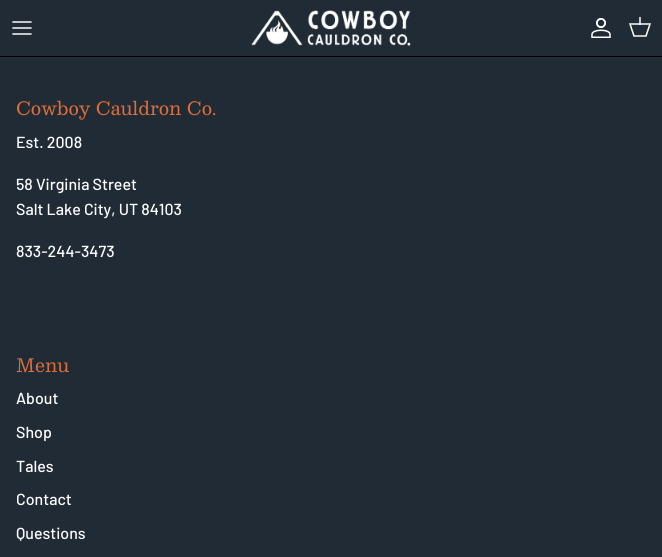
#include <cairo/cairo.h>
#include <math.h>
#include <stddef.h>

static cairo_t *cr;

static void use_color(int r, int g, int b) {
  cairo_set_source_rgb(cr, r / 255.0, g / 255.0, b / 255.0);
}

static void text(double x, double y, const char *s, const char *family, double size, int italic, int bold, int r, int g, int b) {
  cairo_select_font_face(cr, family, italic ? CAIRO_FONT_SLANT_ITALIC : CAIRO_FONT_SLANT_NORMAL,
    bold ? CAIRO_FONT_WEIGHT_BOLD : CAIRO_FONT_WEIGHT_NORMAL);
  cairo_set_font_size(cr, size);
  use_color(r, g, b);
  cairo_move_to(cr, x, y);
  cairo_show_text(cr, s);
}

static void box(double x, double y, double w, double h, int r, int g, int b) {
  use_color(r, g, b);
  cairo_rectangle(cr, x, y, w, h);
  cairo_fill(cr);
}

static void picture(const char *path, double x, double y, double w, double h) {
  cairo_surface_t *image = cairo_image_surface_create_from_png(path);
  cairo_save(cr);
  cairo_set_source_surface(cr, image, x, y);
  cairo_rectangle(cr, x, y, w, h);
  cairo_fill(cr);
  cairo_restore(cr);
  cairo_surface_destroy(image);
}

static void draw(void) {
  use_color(33, 43, 54);
  cairo_paint(cr);
  box(0, 56, 662, 1, 0, 0, 0);
  picture("img_01.png", 12, 21, 20, 14);
  picture("img_02.png", 251, 10, 160, 36);
  picture("img_03.png", 591, 18, 20, 20);
  cairo_new_path(cr);
  cairo_move_to(cr, 630, 24);
  cairo_line_to(cr, 650, 24);
  cairo_line_to(cr, 646, 36);
  cairo_line_to(cr, 634, 36);
  cairo_close_path(cr);
  use_color(255, 255, 255);
  cairo_set_line_width(cr, 1.5);
  cairo_stroke(cr);
  cairo_set_source_rgba(cr, 1, 1, 1, 0.75);
  cairo_rectangle(cr, 639, 17, 2, 8);
  cairo_fill(cr);
  text(16, 115, "Cowboy Cauldron Co.", "Besley", 18.25, 0, 0, 225, 110, 56);
  text(16, 148, "Est. 2008", "Barlow Medium", 16, 0, 0, 255, 255, 255);
  text(16, 190, "58 Virginia Street", "Barlow Medium", 16, 0, 0, 255, 255, 255);
  text(16, 215, "Salt Lake City, UT 84103", "Barlow Medium", 16, 0, 0, 255, 255, 255);
  text(16, 257, "833-244-3473", "Barlow Medium", 16, 0, 0, 255, 255, 255);
  text(16, 372, "Menu", "Besley", 18.25, 0, 0, 225, 110, 56);
  text(16, 404, "About", "Barlow Medium", 16, 0, 0, 255, 255, 255);
  text(16, 438, "Shop", "Barlow Medium", 16, 0, 0, 255, 255, 255);
  text(16, 472, "Tales", "Barlow Medium", 16, 0, 0, 255, 255, 255);
  text(16, 505, "Contact", "Barlow Medium", 16, 0, 0, 255, 255, 255);
  text(16, 539, "Questions", "Barlow Medium", 16, 0, 0, 255, 255, 255);
}

int main(void) {
  cairo_surface_t *surface = cairo_image_surface_create(CAIRO_FORMAT_RGB24, 662, 557);
  cr = cairo_create(surface);
  cairo_font_options_t *options = cairo_font_options_create();
  cairo_font_options_set_hint_metrics(options, CAIRO_HINT_METRICS_OFF);
  cairo_font_options_set_hint_style(options, CAIRO_HINT_STYLE_NONE);
  cairo_set_font_options(cr, options);
  cairo_set_miter_limit(cr, 4);
  draw();
  cairo_surface_write_to_png(surface, "out.png");
  cairo_font_options_destroy(options);
  cairo_destroy(cr);
  cairo_surface_destroy(surface);
  return 0;
}
